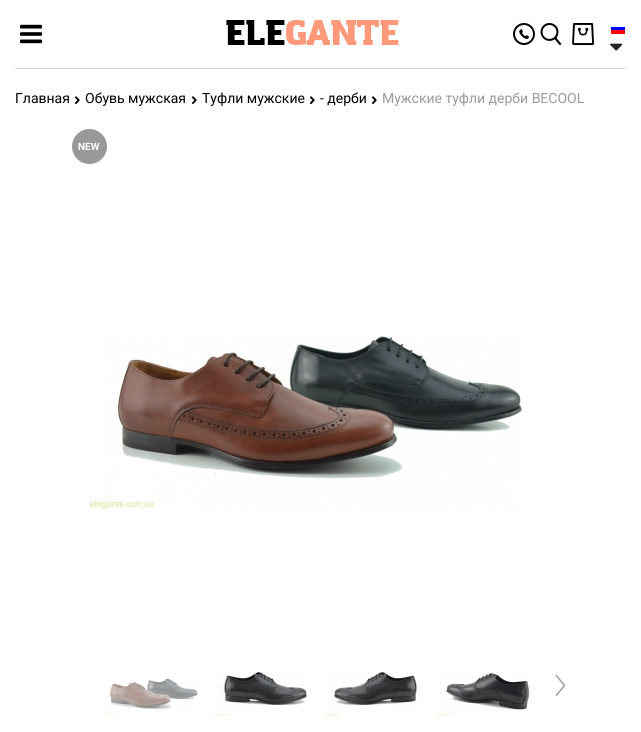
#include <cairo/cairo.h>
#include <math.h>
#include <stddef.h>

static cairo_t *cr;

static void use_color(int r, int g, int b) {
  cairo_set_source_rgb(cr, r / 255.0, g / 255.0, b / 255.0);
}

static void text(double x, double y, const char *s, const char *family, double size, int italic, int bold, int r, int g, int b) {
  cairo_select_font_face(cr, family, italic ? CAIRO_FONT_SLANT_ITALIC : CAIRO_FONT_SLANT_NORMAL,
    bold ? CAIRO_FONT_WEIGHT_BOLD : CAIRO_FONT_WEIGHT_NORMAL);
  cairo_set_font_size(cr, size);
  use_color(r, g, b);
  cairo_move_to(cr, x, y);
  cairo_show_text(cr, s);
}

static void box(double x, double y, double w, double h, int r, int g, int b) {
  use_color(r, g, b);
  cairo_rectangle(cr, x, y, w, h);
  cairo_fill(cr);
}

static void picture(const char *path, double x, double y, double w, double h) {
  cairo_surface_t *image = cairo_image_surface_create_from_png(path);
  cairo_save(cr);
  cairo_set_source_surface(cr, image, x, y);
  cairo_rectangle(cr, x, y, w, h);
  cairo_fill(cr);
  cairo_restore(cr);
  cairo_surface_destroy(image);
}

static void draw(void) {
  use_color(255, 255, 255);
  cairo_paint(cr);
  box(15, 68, 611, 1, 217, 217, 217);
  picture("img_01.png", 20, 24, 22, 20);
  picture("img_02.png", 226, 20, 173, 25);
  picture("img_03.png", 513, 23, 22, 22);
  picture("img_04.png", 540, 23, 22, 22);
  picture("img_05.png", 572, 23, 22, 22);
  picture("img_06.png", 611, 27, 14, 7);
  picture("img_07.png", 610, 43, 12, 8);
  picture("img_08.png", 74, 96, 6, 8);
  picture("img_08.png", 191, 96, 6, 8);
  picture("img_08.png", 309, 96, 6, 8);
  picture("img_08.png", 371, 96, 6, 8);
  use_color(153, 153, 153);
  cairo_arc(cr, 89.5, 146.5, 17.5, 0, 2 * M_PI);
  cairo_fill(cr);
  picture("img_09.png", 90, 335, 432, 175);
  picture("img_10.png", 104, 678, 94, 38);
  picture("img_11.png", 215, 672, 92, 44);
  picture("img_12.png", 326, 672, 96, 44);
  picture("img_13.png", 437, 673, 96, 43);
  picture("img_14.png", 555, 675, 11, 21);
  text(15, 103, "Главная", "Roboto", 14, 0, 0, 0, 0, 0);
  text(85, 103, "Обувь мужская", "Roboto", 14, 0, 0, 0, 0, 0);
  text(202, 103, "Туфли мужские", "Roboto", 14, 0, 0, 0, 0, 0);
  text(320, 103, "- дерби", "Roboto", 14, 0, 0, 0, 0, 0);
  text(382, 103, "Мужские туфли дерби BECOOL", "Roboto", 14, 0, 0, 154, 154, 154);
  text(78, 150, "NEW", "Roboto", 10, 0, 1, 255, 255, 255);
}

int main(void) {
  cairo_surface_t *surface = cairo_image_surface_create(CAIRO_FORMAT_RGB24, 641, 732);
  cr = cairo_create(surface);
  cairo_font_options_t *options = cairo_font_options_create();
  cairo_font_options_set_hint_metrics(options, CAIRO_HINT_METRICS_OFF);
  cairo_font_options_set_hint_style(options, CAIRO_HINT_STYLE_NONE);
  cairo_set_font_options(cr, options);
  cairo_set_miter_limit(cr, 4);
  draw();
  cairo_surface_write_to_png(surface, "out.png");
  cairo_font_options_destroy(options);
  cairo_destroy(cr);
  cairo_surface_destroy(surface);
  return 0;
}
